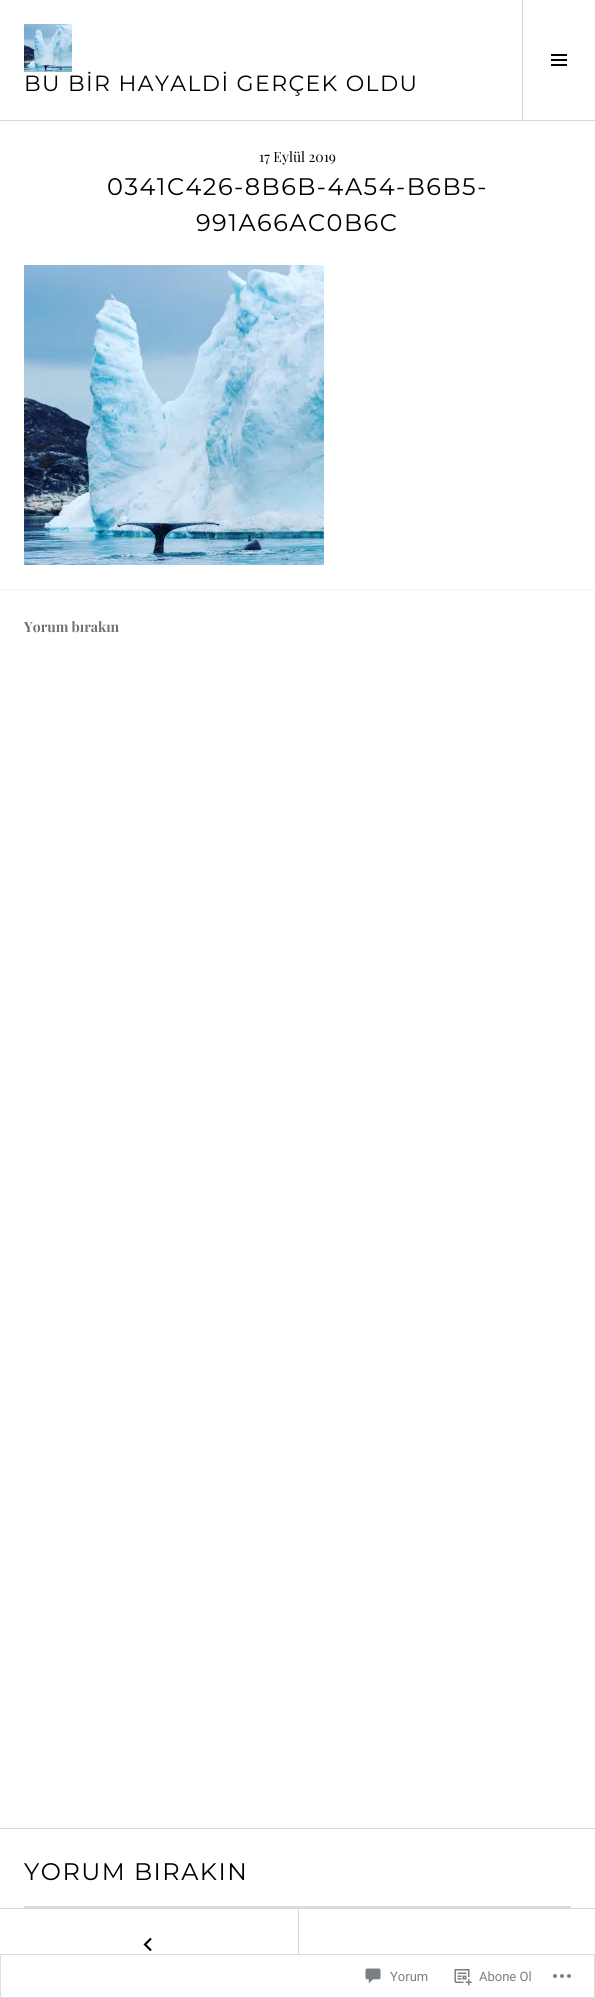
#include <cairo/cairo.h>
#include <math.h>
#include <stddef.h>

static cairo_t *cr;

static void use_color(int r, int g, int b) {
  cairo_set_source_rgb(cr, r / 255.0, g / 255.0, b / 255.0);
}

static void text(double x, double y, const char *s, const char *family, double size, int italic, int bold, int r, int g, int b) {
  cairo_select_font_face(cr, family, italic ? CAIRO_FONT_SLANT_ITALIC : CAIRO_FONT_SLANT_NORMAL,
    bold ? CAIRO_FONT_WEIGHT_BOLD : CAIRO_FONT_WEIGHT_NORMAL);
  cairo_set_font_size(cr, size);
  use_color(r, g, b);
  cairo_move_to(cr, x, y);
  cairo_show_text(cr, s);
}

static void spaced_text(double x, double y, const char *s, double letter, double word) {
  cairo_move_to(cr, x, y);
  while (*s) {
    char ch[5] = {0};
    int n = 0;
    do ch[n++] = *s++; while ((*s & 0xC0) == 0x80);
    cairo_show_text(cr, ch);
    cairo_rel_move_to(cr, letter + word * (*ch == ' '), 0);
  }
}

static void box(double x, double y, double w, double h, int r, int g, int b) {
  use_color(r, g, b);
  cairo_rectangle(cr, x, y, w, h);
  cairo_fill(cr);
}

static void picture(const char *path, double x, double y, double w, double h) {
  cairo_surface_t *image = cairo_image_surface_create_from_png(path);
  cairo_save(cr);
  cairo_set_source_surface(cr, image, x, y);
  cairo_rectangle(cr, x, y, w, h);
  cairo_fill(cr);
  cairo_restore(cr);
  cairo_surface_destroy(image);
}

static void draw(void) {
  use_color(255, 255, 255);
  cairo_paint(cr);
  box(0, 120, 595, 1, 216, 216, 216);
  picture("img_01.png", 24, 24, 48, 48);
  box(522, 0, 1, 120, 216, 216, 216);
  picture("img_02.png", 551, 54, 16, 12);
  picture("img_03.png", 24, 265, 300, 300);
  box(0, 589, 595, 1, 242, 242, 242);
  box(0, 1828, 595, 1, 216, 216, 216);
  box(24, 1906, 547, 2, 220, 220, 222);
  box(0, 1908, 595, 1, 216, 216, 216);
  picture("img_04.png", 143, 1937, 9, 15);
  box(298, 1909, 1, 45, 216, 216, 216);
  cairo_rectangle(cr, 0.5, 1954.5, 594, 43);
  use_color(221, 221, 223);
  cairo_set_line_width(cr, 1);
  cairo_stroke(cr);
  picture("img_05.png", 365, 1968, 16, 16);
  picture("img_06.png", 454, 1969, 18, 17);
  picture("img_07.png", 553, 1974, 18, 4);
  cairo_select_font_face(cr, "Montserrat", CAIRO_FONT_SLANT_NORMAL, CAIRO_FONT_WEIGHT_NORMAL);
  cairo_set_font_size(cr, 22);
  use_color(0, 0, 0);
  spaced_text(24, 91, "BU BİR HAYALDİ GERÇEK OLDU", 1.4, 0);
  text(259, 162, "17 Eylül 2019", "Playfair Display", 14, 0, 0, 0, 0, 0);
  cairo_select_font_face(cr, "Montserrat", CAIRO_FONT_SLANT_NORMAL, CAIRO_FONT_WEIGHT_NORMAL);
  cairo_set_font_size(cr, 24);
  spaced_text(107, 195, "0341C426-8B6B-4A54-B6B5-", 1.5, 0);
  spaced_text(196, 231, "991A66AC0B6C", 1.5, 0);
  text(24, 632, "Yorum bırakın", "Playfair Display", 14, 0, 1, 112, 112, 112);
  cairo_select_font_face(cr, "Montserrat", CAIRO_FONT_SLANT_NORMAL, CAIRO_FONT_WEIGHT_NORMAL);
  cairo_set_font_size(cr, 24);
  use_color(0, 0, 0);
  spaced_text(24, 1880, "YORUM BIRAKIN", 1.5, 0);
  text(390, 1981, "Yorum", "Roboto", 13, 0, 0, 123, 127, 132);
  text(479, 1981, "Abone Ol", "Roboto", 13, 0, 0, 123, 127, 132);
}

int main(void) {
  cairo_surface_t *surface = cairo_image_surface_create(CAIRO_FORMAT_RGB24, 595, 1998);
  cr = cairo_create(surface);
  cairo_font_options_t *options = cairo_font_options_create();
  cairo_font_options_set_hint_metrics(options, CAIRO_HINT_METRICS_OFF);
  cairo_font_options_set_hint_style(options, CAIRO_HINT_STYLE_NONE);
  cairo_set_font_options(cr, options);
  cairo_set_miter_limit(cr, 4);
  draw();
  cairo_surface_write_to_png(surface, "out.png");
  cairo_font_options_destroy(options);
  cairo_destroy(cr);
  cairo_surface_destroy(surface);
  return 0;
}
